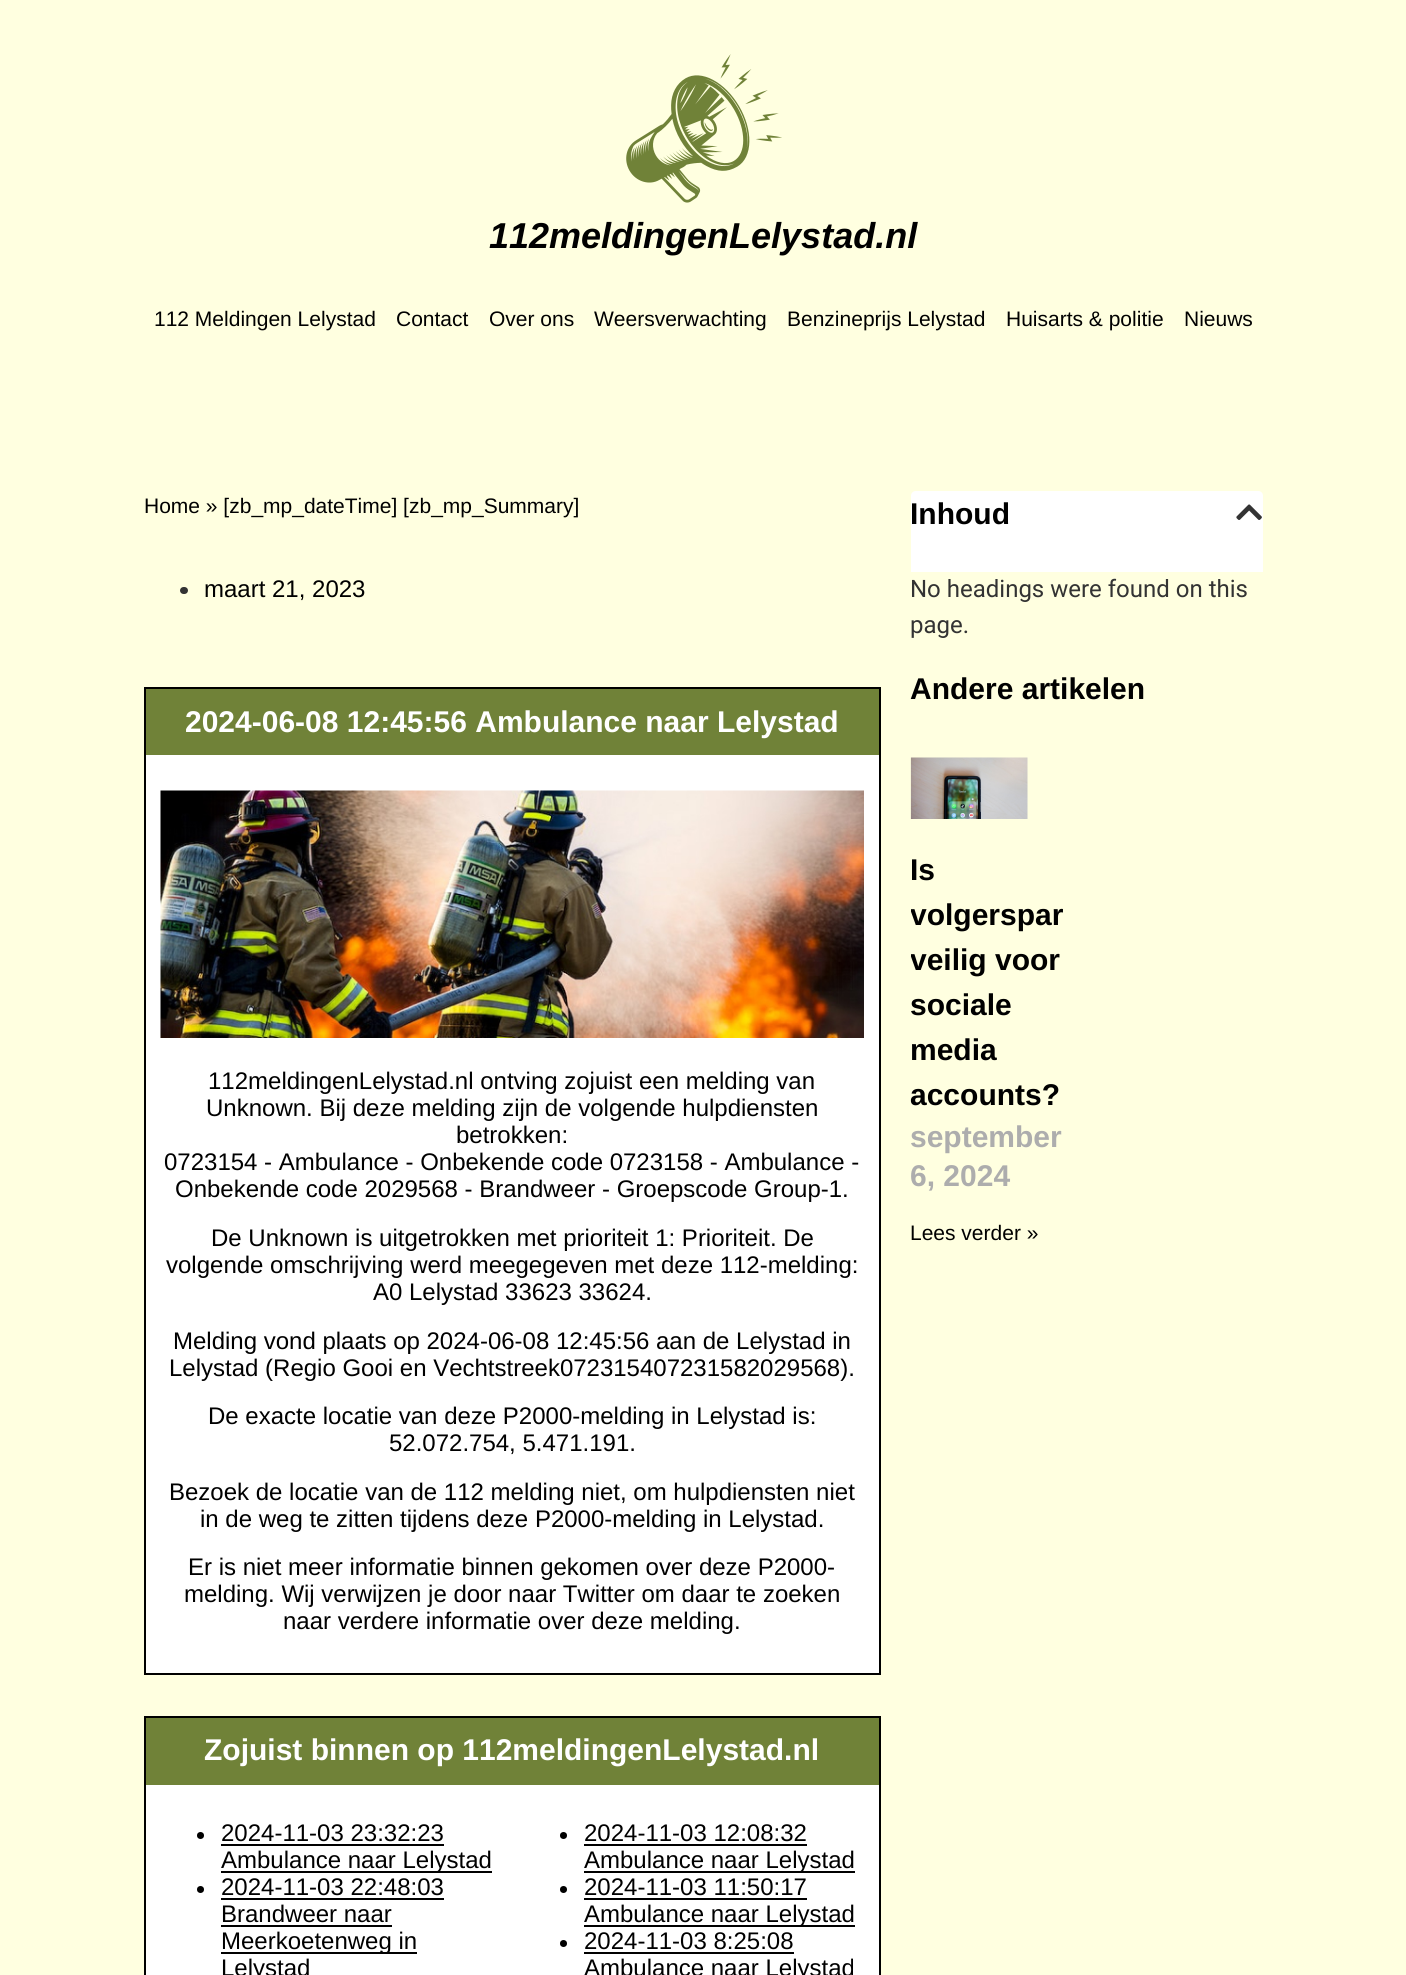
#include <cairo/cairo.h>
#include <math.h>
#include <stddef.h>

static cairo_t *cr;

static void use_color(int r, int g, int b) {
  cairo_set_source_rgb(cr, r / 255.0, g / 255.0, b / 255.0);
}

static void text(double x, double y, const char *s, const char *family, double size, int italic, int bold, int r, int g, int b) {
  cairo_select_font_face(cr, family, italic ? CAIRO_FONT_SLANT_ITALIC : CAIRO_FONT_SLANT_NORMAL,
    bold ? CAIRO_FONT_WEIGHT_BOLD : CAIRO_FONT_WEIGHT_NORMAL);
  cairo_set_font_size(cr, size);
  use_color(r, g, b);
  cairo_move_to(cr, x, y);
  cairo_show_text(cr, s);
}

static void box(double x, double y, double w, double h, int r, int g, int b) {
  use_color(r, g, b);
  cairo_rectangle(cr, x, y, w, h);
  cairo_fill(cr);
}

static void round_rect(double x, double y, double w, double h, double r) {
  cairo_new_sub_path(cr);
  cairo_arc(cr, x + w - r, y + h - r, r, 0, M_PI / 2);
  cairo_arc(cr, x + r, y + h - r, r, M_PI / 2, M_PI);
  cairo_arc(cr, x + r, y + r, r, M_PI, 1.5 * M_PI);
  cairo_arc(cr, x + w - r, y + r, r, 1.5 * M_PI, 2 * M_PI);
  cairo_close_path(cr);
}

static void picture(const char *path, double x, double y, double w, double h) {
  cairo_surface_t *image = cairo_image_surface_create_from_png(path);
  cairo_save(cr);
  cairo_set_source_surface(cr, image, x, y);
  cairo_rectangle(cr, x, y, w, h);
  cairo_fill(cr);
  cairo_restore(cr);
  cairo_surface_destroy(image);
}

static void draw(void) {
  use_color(255, 255, 224);
  cairo_paint(cr);
  picture("img_01.png", 626, 54, 156, 149);
  use_color(51, 51, 51);
  round_rect(180, 587, 8, 7, 3.5);
  cairo_fill(cr);
  box(146, 689, 733, 66, 112, 130, 56);
  box(144, 687, 737, 2, 0, 0, 0);
  box(879, 687, 2, 987, 0, 0, 0);
  box(144, 687, 2, 68, 0, 0, 0);
  box(146, 755, 733, 918, 255, 255, 255);
  box(144, 1673, 737, 2, 0, 0, 0);
  box(144, 755, 2, 919, 0, 0, 0);
  picture("img_02.png", 160, 790, 704, 248);
  box(146, 1718, 733, 67, 112, 130, 56);
  box(144, 1716, 737, 2, 0, 0, 0);
  box(879, 1716, 2, 259, 0, 0, 0);
  box(144, 1716, 2, 259, 0, 0, 0);
  box(146, 1785, 733, 190, 255, 255, 255);
  use_color(0, 0, 0);
  cairo_arc(cr, 200.5, 1835.5, 3.5, 0, 2 * M_PI);
  cairo_fill(cr);
  box(221, 1844, 223, 2, 0, 0, 0);
  box(221, 1871, 271, 2, 0, 0, 0);
  cairo_arc(cr, 563.5, 1835.5, 3.5, 0, 2 * M_PI);
  cairo_fill(cr);
  box(584, 1844, 223, 2, 0, 0, 0);
  box(584, 1871, 271, 2, 0, 0, 0);
  cairo_arc(cr, 200.5, 1889.5, 3.5, 0, 2 * M_PI);
  cairo_fill(cr);
  box(221, 1898, 223, 2, 0, 0, 0);
  box(221, 1925, 171, 2, 0, 0, 0);
  box(221, 1952, 196, 2, 0, 0, 0);
  cairo_arc(cr, 563.5, 1889.5, 3.5, 0, 2 * M_PI);
  cairo_fill(cr);
  box(584, 1898, 223, 2, 0, 0, 0);
  box(584, 1925, 271, 2, 0, 0, 0);
  cairo_arc(cr, 563.5, 1943.5, 3.5, 0, 2 * M_PI);
  cairo_fill(cr);
  box(584, 1952, 210, 2, 0, 0, 0);
  use_color(255, 255, 255);
  cairo_new_path(cr);
  cairo_move_to(cr, 916, 491);
  cairo_line_to(cr, 1258, 491);
  cairo_curve_to(cr, 1261, 491, 1263, 493, 1263, 496);
  cairo_line_to(cr, 1263, 572);
  cairo_line_to(cr, 911, 572);
  cairo_line_to(cr, 911, 496);
  cairo_curve_to(cr, 911, 493, 913, 491, 916, 491);
  cairo_close_path(cr);
  cairo_fill(cr);
  picture("img_03.png", 1236, 504, 26, 16);
  picture("img_04.png", 910, 757, 118, 62);
  text(489, 248, "112meldingenLelystad.nl", "Liberation Sans", 36, 1, 1, 0, 0, 0);
  text(154, 326, "112 Meldingen Lelystad", "Liberation Sans", 21, 0, 0, 0, 0, 0);
  text(396, 326, "Contact", "Liberation Sans", 21, 0, 0, 0, 0, 0);
  text(489, 326, "Over ons", "Liberation Sans", 21, 0, 0, 0, 0, 0);
  text(594, 326, "Weersverwachting", "Liberation Sans", 21, 0, 0, 0, 0, 0);
  text(787, 326, "Benzineprijs Lelystad", "Liberation Sans", 21, 0, 0, 0, 0, 0);
  text(1006, 326, "Huisarts & politie", "Liberation Sans", 21, 0, 0, 0, 0, 0);
  text(1184, 326, "Nieuws", "Liberation Sans", 21, 0, 0, 0, 0, 0);
  text(144, 513, "Home » [zb_mp_dateTime] [zb_mp_Summary]", "Liberation Sans", 21, 0, 0, 0, 0, 0);
  text(204, 597, "maart 21, 2023", "Liberation Sans", 24, 0, 0, 0, 0, 0);
  text(185, 732, "2024-06-08 12:45:56 Ambulance naar Lelystad", "Liberation Sans", 30, 0, 1, 255, 255, 255);
  text(208, 1089, "112meldingenLelystad.nl ontving zojuist een melding van", "Liberation Sans", 24, 0, 0, 0, 0, 0);
  text(206, 1116, "Unknown. Bij deze melding zijn de volgende hulpdiensten", "Liberation Sans", 24, 0, 0, 0, 0, 0);
  text(456, 1143, "betrokken:", "Liberation Sans", 24, 0, 0, 0, 0, 0);
  text(164, 1170, "0723154 - Ambulance - Onbekende code 0723158 - Ambulance -", "Liberation Sans", 24, 0, 0, 0, 0, 0);
  text(175, 1197, "Onbekende code 2029568 - Brandweer - Groepscode Group-1.", "Liberation Sans", 24, 0, 0, 0, 0, 0);
  text(211, 1246, "De Unknown is uitgetrokken met prioriteit 1: Prioriteit. De", "Liberation Sans", 24, 0, 0, 0, 0, 0);
  text(166, 1273, "volgende omschrijving werd meegegeven met deze 112-melding:", "Liberation Sans", 24, 0, 0, 0, 0, 0);
  text(373, 1300, "A0 Lelystad 33623 33624.", "Liberation Sans", 24, 0, 0, 0, 0, 0);
  text(173, 1349, "Melding vond plaats op 2024-06-08 12:45:56 aan de Lelystad in", "Liberation Sans", 24, 0, 0, 0, 0, 0);
  text(169, 1376, "Lelystad (Regio Gooi en Vechtstreek072315407231582029568).", "Liberation Sans", 24, 0, 0, 0, 0, 0);
  text(208, 1424, "De exacte locatie van deze P2000-melding in Lelystad is:", "Liberation Sans", 24, 0, 0, 0, 0, 0);
  text(389, 1451, "52.072.754, 5.471.191.", "Liberation Sans", 24, 0, 0, 0, 0, 0);
  text(169, 1500, "Bezoek de locatie van de 112 melding niet, om hulpdiensten niet", "Liberation Sans", 24, 0, 0, 0, 0, 0);
  text(200, 1527, "in de weg te zitten tijdens deze P2000-melding in Lelystad.", "Liberation Sans", 24, 0, 0, 0, 0, 0);
  text(188, 1575, "Er is niet meer informatie binnen gekomen over deze P2000-", "Liberation Sans", 24, 0, 0, 0, 0, 0);
  text(184, 1602, "melding. Wij verwijzen je door naar Twitter om daar te zoeken", "Liberation Sans", 24, 0, 0, 0, 0, 0);
  text(283, 1629, "naar verdere informatie over deze melding.", "Liberation Sans", 24, 0, 0, 0, 0, 0);
  text(204, 1760, "Zojuist binnen op 112meldingenLelystad.nl", "Liberation Sans", 30, 0, 1, 255, 255, 255);
  text(221, 1841, "2024-11-03 23:32:23", "Liberation Sans", 24, 0, 0, 0, 0, 0);
  text(221, 1868, "Ambulance naar Lelystad", "Liberation Sans", 24, 0, 0, 0, 0, 0);
  text(584, 1841, "2024-11-03 12:08:32", "Liberation Sans", 24, 0, 0, 0, 0, 0);
  text(584, 1868, "Ambulance naar Lelystad", "Liberation Sans", 24, 0, 0, 0, 0, 0);
  text(221, 1895, "2024-11-03 22:48:03", "Liberation Sans", 24, 0, 0, 0, 0, 0);
  text(221, 1922, "Brandweer naar", "Liberation Sans", 24, 0, 0, 0, 0, 0);
  text(221, 1949, "Meerkoetenweg in", "Liberation Sans", 24, 0, 0, 0, 0, 0);
  text(221, 1976, "Lelystad", "Liberation Sans", 24, 0, 0, 0, 0, 0);
  text(584, 1895, "2024-11-03 11:50:17", "Liberation Sans", 24, 0, 0, 0, 0, 0);
  text(584, 1922, "Ambulance naar Lelystad", "Liberation Sans", 24, 0, 0, 0, 0, 0);
  text(584, 1949, "2024-11-03 8:25:08", "Liberation Sans", 24, 0, 0, 0, 0, 0);
  text(584, 1976, "Ambulance naar Lelystad", "Liberation Sans", 24, 0, 0, 0, 0, 0);
  text(910, 524, "Inhoud", "Liberation Sans", 30, 0, 1, 0, 0, 0);
  text(910, 597, "No headings were found on this", "Roboto", 24, 0, 0, 51, 51, 51);
  text(910, 633, "page.", "Roboto", 24, 0, 0, 51, 51, 51);
  text(910, 699, "Andere artikelen", "Liberation Sans", 30, 0, 1, 0, 0, 0);
  text(910, 880, "Is", "Liberation Sans", 30, 0, 1, 0, 0, 0);
  cairo_save(cr);
  cairo_rectangle(cr, 911, 758, 153, 493);
  cairo_clip(cr);
  text(910, 925, "volgerspar", "Liberation Sans", 30, 0, 1, 0, 0, 0);
  text(910, 970, "veilig voor", "Liberation Sans", 30, 0, 1, 0, 0, 0);
  cairo_restore(cr);
  text(910, 1015, "sociale", "Liberation Sans", 30, 0, 1, 0, 0, 0);
  text(910, 1060, "media", "Liberation Sans", 30, 0, 1, 0, 0, 0);
  text(910, 1105, "accounts?", "Liberation Sans", 30, 0, 1, 0, 0, 0);
  text(910, 1147, "september", "Liberation Sans", 30, 0, 1, 173, 173, 173);
  text(910, 1186, "6, 2024", "Liberation Sans", 30, 0, 1, 173, 173, 173);
  text(910, 1240, "Lees verder »", "Liberation Sans", 21, 0, 0, 0, 0, 0);
}

int main(void) {
  cairo_surface_t *surface = cairo_image_surface_create(CAIRO_FORMAT_RGB24, 1406, 1975);
  cr = cairo_create(surface);
  cairo_font_options_t *options = cairo_font_options_create();
  cairo_font_options_set_hint_metrics(options, CAIRO_HINT_METRICS_OFF);
  cairo_font_options_set_hint_style(options, CAIRO_HINT_STYLE_NONE);
  cairo_set_font_options(cr, options);
  cairo_set_miter_limit(cr, 4);
  draw();
  cairo_surface_write_to_png(surface, "out.png");
  cairo_font_options_destroy(options);
  cairo_destroy(cr);
  cairo_surface_destroy(surface);
  return 0;
}
